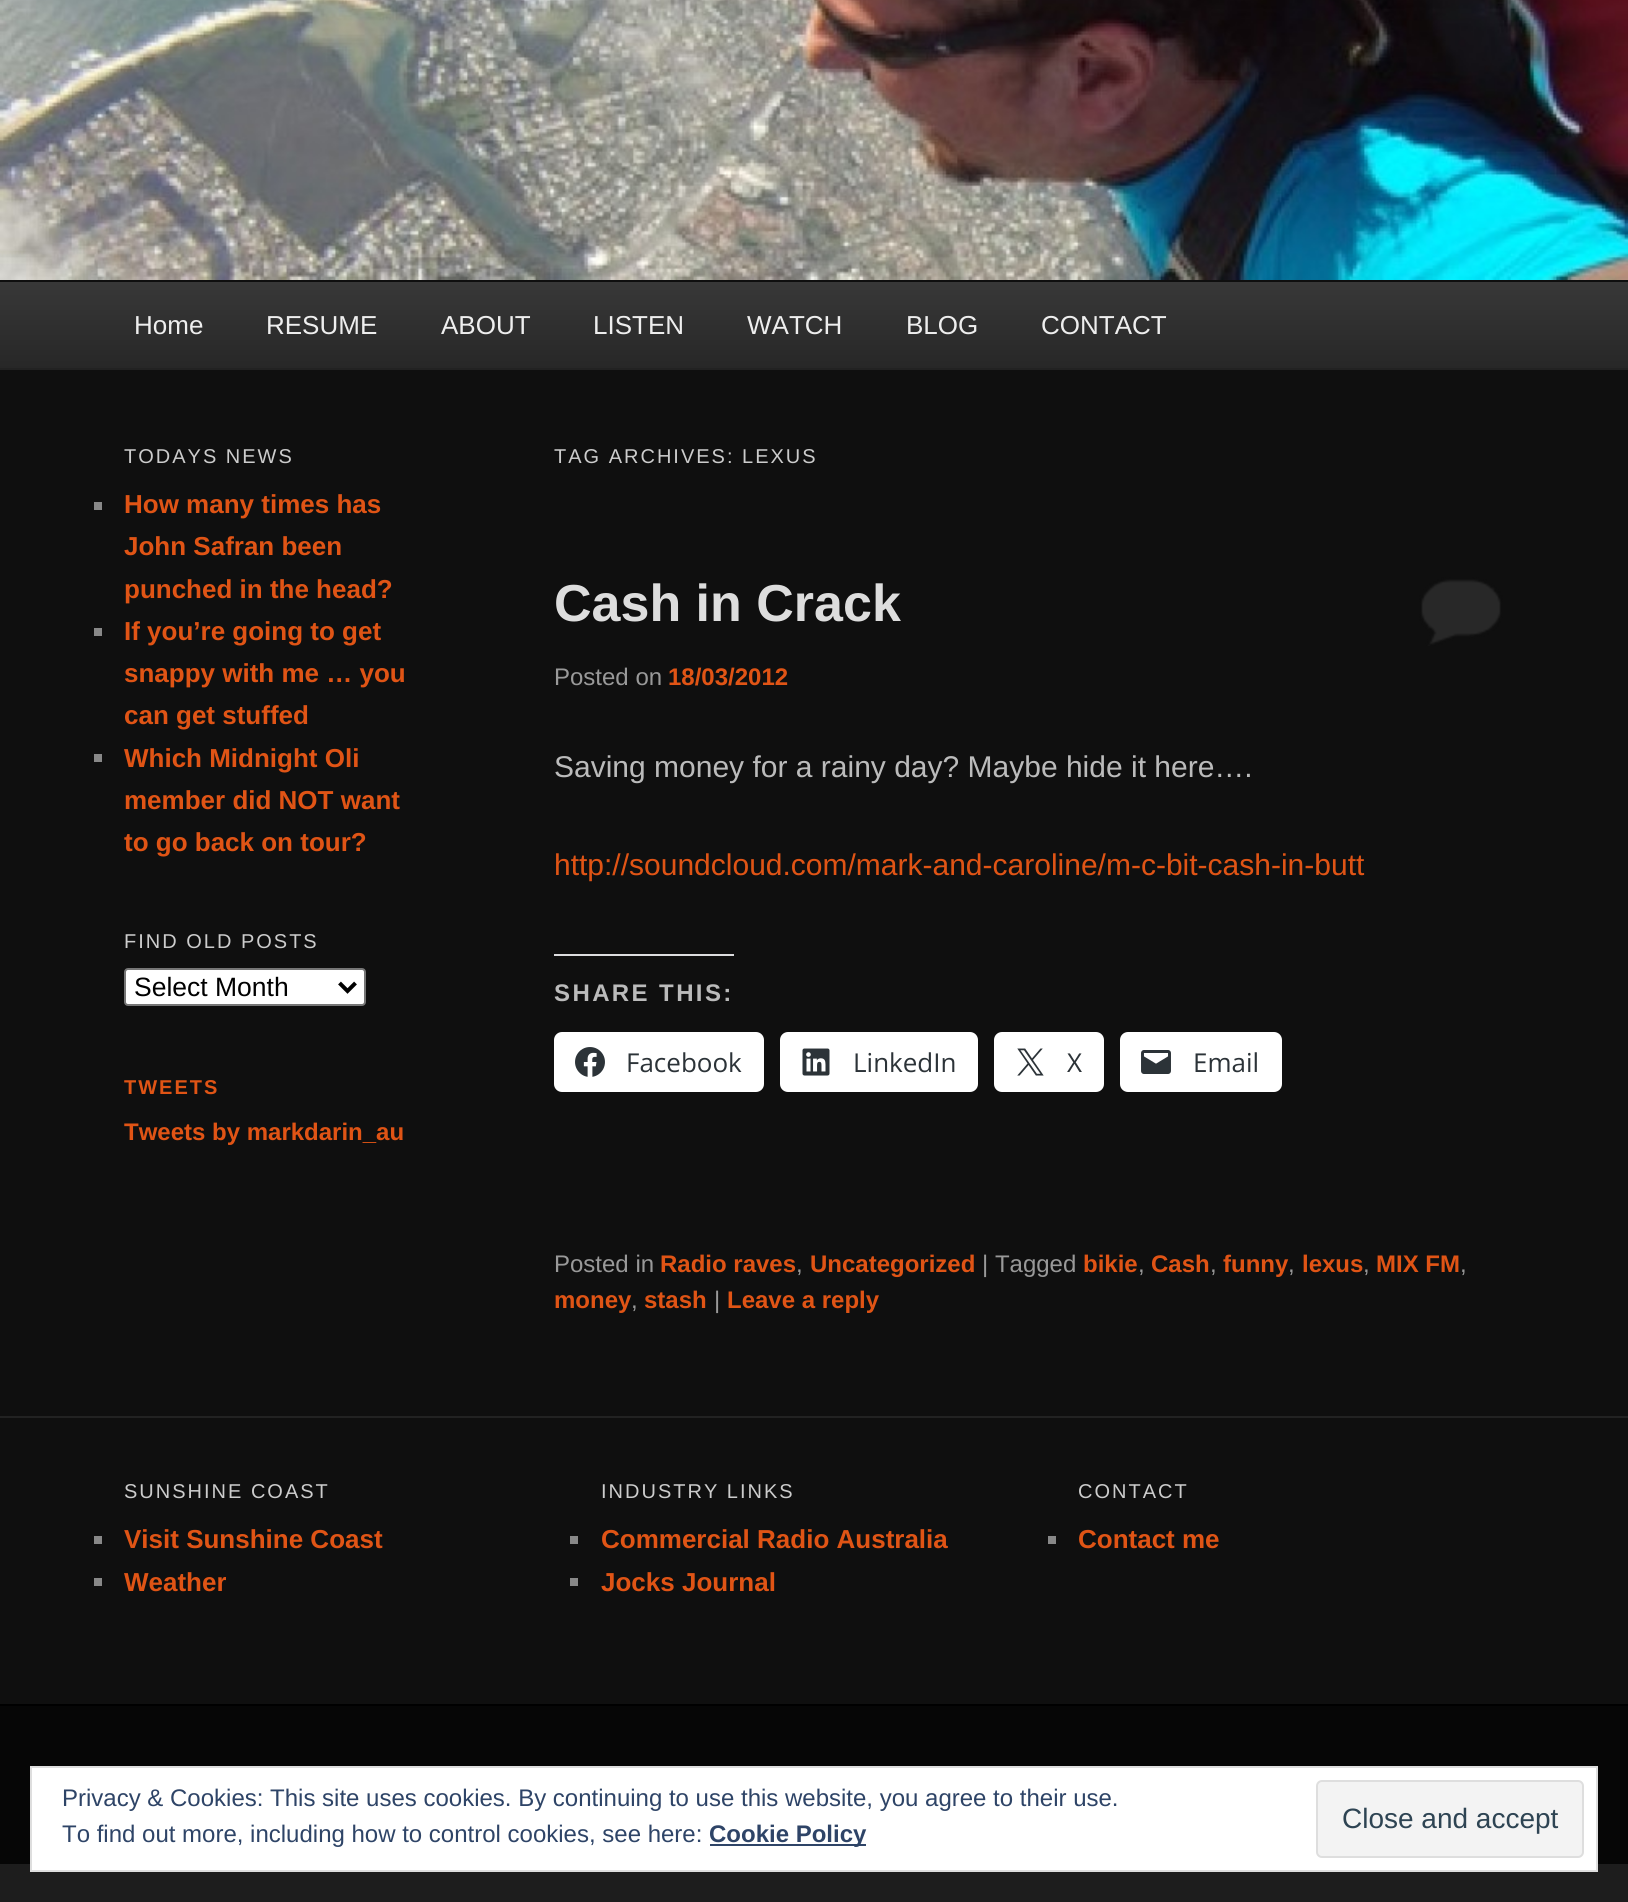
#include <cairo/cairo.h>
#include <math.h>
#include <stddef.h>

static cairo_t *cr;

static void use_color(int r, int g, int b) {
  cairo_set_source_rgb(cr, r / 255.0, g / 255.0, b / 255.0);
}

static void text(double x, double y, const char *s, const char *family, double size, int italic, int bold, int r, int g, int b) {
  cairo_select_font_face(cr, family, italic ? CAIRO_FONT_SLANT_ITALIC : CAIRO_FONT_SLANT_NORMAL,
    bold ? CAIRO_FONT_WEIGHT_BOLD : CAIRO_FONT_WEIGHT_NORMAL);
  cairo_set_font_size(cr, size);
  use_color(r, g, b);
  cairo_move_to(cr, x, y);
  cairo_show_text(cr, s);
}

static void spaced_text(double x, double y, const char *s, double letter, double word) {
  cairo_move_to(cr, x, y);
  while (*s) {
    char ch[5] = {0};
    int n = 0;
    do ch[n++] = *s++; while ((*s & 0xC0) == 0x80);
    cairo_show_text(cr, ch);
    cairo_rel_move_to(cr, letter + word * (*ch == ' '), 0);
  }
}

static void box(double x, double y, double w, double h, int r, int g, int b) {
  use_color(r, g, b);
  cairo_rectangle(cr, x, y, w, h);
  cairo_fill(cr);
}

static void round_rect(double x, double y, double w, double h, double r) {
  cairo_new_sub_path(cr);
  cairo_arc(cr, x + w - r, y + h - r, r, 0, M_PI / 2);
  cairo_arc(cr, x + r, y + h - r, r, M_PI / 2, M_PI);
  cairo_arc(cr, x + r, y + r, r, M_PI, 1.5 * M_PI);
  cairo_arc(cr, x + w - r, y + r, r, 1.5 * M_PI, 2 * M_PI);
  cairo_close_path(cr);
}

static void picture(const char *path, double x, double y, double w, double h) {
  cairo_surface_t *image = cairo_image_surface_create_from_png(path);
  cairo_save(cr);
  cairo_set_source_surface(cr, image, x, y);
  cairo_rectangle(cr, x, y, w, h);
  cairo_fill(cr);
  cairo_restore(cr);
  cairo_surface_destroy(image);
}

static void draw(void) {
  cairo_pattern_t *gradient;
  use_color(29, 29, 29);
  cairo_paint(cr);
  box(0, 280, 1628, 1424, 15, 15, 15);
  picture("img_01.png", 0, 0, 1628, 280);
  gradient = cairo_pattern_create_linear(814, 282, 814, 368);
  cairo_pattern_add_color_stop_rgba(gradient, 0, 0.22, 0.22, 0.22, 1);
  cairo_pattern_add_color_stop_rgba(gradient, 1, 0.153, 0.153, 0.153, 1);
  cairo_set_source(cr, gradient);
  cairo_pattern_destroy(gradient);
  cairo_rectangle(cr, 0, 282, 1628, 86);
  cairo_fill(cr);
  box(0, 368, 1628, 2, 34, 34, 34);
  box(94, 502, 8, 8, 136, 136, 136);
  box(94, 628, 8, 8, 136, 136, 136);
  box(94, 754, 8, 8, 136, 136, 136);
  use_color(255, 255, 255);
  round_rect(125, 969, 240, 36, 3);
  cairo_fill_preserve(cr);
  use_color(118, 118, 118);
  cairo_stroke(cr);
  cairo_new_path(cr);
  cairo_move_to(cr, 339.5, 983);
  cairo_line_to(cr, 347.5, 991);
  cairo_line_to(cr, 355.5, 983);
  use_color(0, 0, 0);
  cairo_set_line_width(cr, 4);
  cairo_stroke(cr);
  box(1419, 577, 84, 69, 40, 40, 40);
  picture("img_02.png", 1418, 574, 86, 72);
  box(554, 954, 180, 2, 220, 220, 222);
  use_color(255, 255, 255);
  round_rect(554, 1032, 210, 60, 8);
  cairo_fill(cr);
  picture("img_03.png", 575, 1047, 30, 30);
  round_rect(780, 1032, 198, 60, 8);
  cairo_fill(cr);
  picture("img_04.png", 802, 1048, 28, 28);
  round_rect(994, 1032, 110, 60, 8);
  cairo_fill(cr);
  picture("img_05.png", 1017, 1048, 27, 28);
  round_rect(1120, 1032, 162, 60, 8);
  cairo_fill(cr);
  picture("img_06.png", 1141, 1050, 30, 24);
  box(0, 1416, 1628, 2, 34, 34, 34);
  box(94, 1536, 8, 8, 136, 136, 136);
  box(94, 1578, 8, 8, 136, 136, 136);
  box(570, 1536, 8, 8, 136, 136, 136);
  box(570, 1578, 8, 8, 136, 136, 136);
  box(1048, 1536, 8, 8, 136, 136, 136);
  box(0, 1706, 1628, 158, 6, 6, 6);
  box(0, 1704, 1628, 2, 0, 0, 0);
  use_color(255, 255, 255);
  cairo_rectangle(cr, 31, 1767, 1566, 104);
  cairo_fill_preserve(cr);
  use_color(222, 222, 222);
  cairo_set_line_width(cr, 2);
  cairo_stroke(cr);
  box(710, 1844, 156, 2, 46, 68, 103);
  use_color(243, 243, 243);
  round_rect(1317, 1781, 266, 76, 5);
  cairo_fill_preserve(cr);
  use_color(222, 222, 222);
  cairo_stroke(cr);
  text(134, 334, "Home", "Liberation Sans", 26, 0, 0, 238, 238, 238);
  text(266, 334, "RESUME", "Liberation Sans", 26, 0, 0, 238, 238, 238);
  text(441, 334, "ABOUT", "Liberation Sans", 26, 0, 0, 238, 238, 238);
  text(593, 334, "LISTEN", "Liberation Sans", 26, 0, 0, 238, 238, 238);
  text(747, 334, "WATCH", "Liberation Sans", 26, 0, 0, 238, 238, 238);
  text(906, 334, "BLOG", "Liberation Sans", 26, 0, 0, 238, 238, 238);
  text(1041, 334, "CONTACT", "Liberation Sans", 26, 0, 0, 238, 238, 238);
  cairo_set_font_size(cr, 20);
  use_color(204, 204, 204);
  spaced_text(124, 463, "TODAYS NEWS", 2, 0);
  text(124, 513, "How many times has", "Liberation Sans", 26, 0, 1, 224, 84, 21);
  text(124, 555, "John Safran been", "Liberation Sans", 26, 0, 1, 224, 84, 21);
  text(124, 598, "punched in the head?", "Liberation Sans", 26, 0, 1, 224, 84, 21);
  text(124, 640, "If you’re going to get", "Liberation Sans", 26, 0, 1, 224, 84, 21);
  text(124, 682, "snappy with me … you", "Liberation Sans", 26, 0, 1, 224, 84, 21);
  text(124, 724, "can get stuffed", "Liberation Sans", 26, 0, 1, 224, 84, 21);
  text(124, 767, "Which Midnight Oli", "Liberation Sans", 26, 0, 1, 224, 84, 21);
  text(124, 809, "member did NOT want", "Liberation Sans", 26, 0, 1, 224, 84, 21);
  text(124, 851, "to go back on tour?", "Liberation Sans", 26, 0, 1, 224, 84, 21);
  cairo_select_font_face(cr, "Liberation Sans", CAIRO_FONT_SLANT_NORMAL, CAIRO_FONT_WEIGHT_NORMAL);
  cairo_set_font_size(cr, 20);
  use_color(204, 204, 204);
  spaced_text(124, 948, "FIND OLD POSTS", 2, 0);
  text(134, 996, "Select Month", "Liberation Sans", 26.5, 0, 0, 0, 0, 0);
  cairo_select_font_face(cr, "Liberation Sans", CAIRO_FONT_SLANT_NORMAL, CAIRO_FONT_WEIGHT_BOLD);
  cairo_set_font_size(cr, 20);
  use_color(224, 84, 21);
  spaced_text(124, 1094, "TWEETS", 2, 0);
  text(124, 1140, "Tweets by markdarin_au", "Liberation Sans", 24, 0, 1, 224, 84, 21);
  cairo_select_font_face(cr, "Liberation Sans", CAIRO_FONT_SLANT_NORMAL, CAIRO_FONT_WEIGHT_NORMAL);
  cairo_set_font_size(cr, 20);
  use_color(204, 204, 204);
  spaced_text(554, 463, "TAG ARCHIVES: LEXUS", 2, 0);
  text(554, 621, "Cash in Crack", "Liberation Sans", 52, 0, 1, 221, 221, 221);
  text(554, 685, "Posted on", "Liberation Sans", 24, 0, 0, 153, 153, 153);
  text(668, 685, "18/03/2012", "Liberation Sans", 24, 0, 1, 224, 84, 21);
  text(554, 777, "Saving money for a rainy day? Maybe hide it here….", "Liberation Sans", 30, 0, 0, 187, 187, 187);
  text(554, 875, "http://soundcloud.com/mark-and-caroline/m-c-bit-cash-in-butt", "Liberation Sans", 30, 0, 0, 224, 84, 21);
  cairo_select_font_face(cr, "Liberation Sans", CAIRO_FONT_SLANT_NORMAL, CAIRO_FONT_WEIGHT_BOLD);
  cairo_set_font_size(cr, 24);
  use_color(187, 187, 187);
  spaced_text(554, 1001, "SHARE THIS:", 2.4, 0);
  text(626, 1072, "Facebook", "Open Sans", 26, 0, 0, 44, 51, 56);
  text(853, 1072, "LinkedIn", "Open Sans", 26, 0, 0, 44, 51, 56);
  text(1067, 1072, "X", "Open Sans", 26, 0, 0, 44, 51, 56);
  text(1193, 1072, "Email", "Open Sans", 26, 0, 0, 44, 51, 56);
  text(554, 1272, "Posted in", "Liberation Sans", 24, 0, 0, 153, 153, 153);
  text(660, 1272, "Radio raves", "Liberation Sans", 24, 0, 1, 224, 84, 21);
  text(796, 1272, ",", "Liberation Sans", 24, 0, 0, 153, 153, 153);
  text(810, 1272, "Uncategorized", "Liberation Sans", 24, 0, 1, 224, 84, 21);
  text(982, 1272, "| Tagged", "Liberation Sans", 24, 0, 0, 153, 153, 153);
  text(1083, 1272, "bikie", "Liberation Sans", 24, 0, 1, 224, 84, 21);
  text(1138, 1272, ",", "Liberation Sans", 24, 0, 0, 153, 153, 153);
  text(1151, 1272, "Cash", "Liberation Sans", 24, 0, 1, 224, 84, 21);
  text(1210, 1272, ",", "Liberation Sans", 24, 0, 0, 153, 153, 153);
  text(1223, 1272, "funny", "Liberation Sans", 24, 0, 1, 224, 84, 21);
  text(1288, 1272, ",", "Liberation Sans", 24, 0, 0, 153, 153, 153);
  text(1302, 1272, "lexus", "Liberation Sans", 24, 0, 1, 224, 84, 21);
  text(1363, 1272, ",", "Liberation Sans", 24, 0, 0, 153, 153, 153);
  text(1376, 1272, "MIX FM", "Liberation Sans", 24, 0, 1, 224, 84, 21);
  text(1460, 1272, ",", "Liberation Sans", 24, 0, 0, 153, 153, 153);
  text(554, 1308, "money", "Liberation Sans", 24, 0, 1, 224, 84, 21);
  text(631, 1308, ",", "Liberation Sans", 24, 0, 0, 153, 153, 153);
  text(644, 1308, "stash", "Liberation Sans", 24, 0, 1, 224, 84, 21);
  text(714, 1308, "|", "Liberation Sans", 24, 0, 0, 153, 153, 153);
  text(727, 1308, "Leave a reply", "Liberation Sans", 24, 0, 1, 224, 84, 21);
  cairo_select_font_face(cr, "Liberation Sans", CAIRO_FONT_SLANT_NORMAL, CAIRO_FONT_WEIGHT_NORMAL);
  cairo_set_font_size(cr, 20);
  use_color(204, 204, 204);
  spaced_text(124, 1498, "SUNSHINE COAST", 2, 0);
  text(124, 1548, "Visit Sunshine Coast", "Liberation Sans", 26, 0, 1, 224, 84, 21);
  text(124, 1591, "Weather", "Liberation Sans", 26, 0, 1, 224, 84, 21);
  cairo_select_font_face(cr, "Liberation Sans", CAIRO_FONT_SLANT_NORMAL, CAIRO_FONT_WEIGHT_NORMAL);
  cairo_set_font_size(cr, 20);
  use_color(204, 204, 204);
  spaced_text(601, 1498, "INDUSTRY LINKS", 2, 0);
  text(601, 1548, "Commercial Radio Australia", "Liberation Sans", 26, 0, 1, 224, 84, 21);
  text(601, 1591, "Jocks Journal", "Liberation Sans", 26, 0, 1, 224, 84, 21);
  cairo_select_font_face(cr, "Liberation Sans", CAIRO_FONT_SLANT_NORMAL, CAIRO_FONT_WEIGHT_NORMAL);
  cairo_set_font_size(cr, 20);
  use_color(204, 204, 204);
  spaced_text(1078, 1498, "CONTACT", 2, 0);
  text(1078, 1548, "Contact me", "Liberation Sans", 26, 0, 1, 224, 84, 21);
  text(62, 1806, "Privacy & Cookies: This site uses cookies. By continuing to use this website, you agree to their use.", "Liberation Sans", 24, 0, 0, 46, 68, 103);
  text(62, 1842, "To find out more, including how to control cookies, see here:", "Liberation Sans", 24, 0, 0, 46, 68, 103);
  text(709, 1842, "Cookie Policy", "Liberation Sans", 24, 0, 1, 46, 68, 103);
  text(1342, 1828, "Close and accept", "Liberation Sans", 28, 0, 0, 46, 68, 83);
}

int main(void) {
  cairo_surface_t *surface = cairo_image_surface_create(CAIRO_FORMAT_RGB24, 1628, 1902);
  cr = cairo_create(surface);
  cairo_font_options_t *options = cairo_font_options_create();
  cairo_font_options_set_hint_metrics(options, CAIRO_HINT_METRICS_OFF);
  cairo_font_options_set_hint_style(options, CAIRO_HINT_STYLE_NONE);
  cairo_set_font_options(cr, options);
  cairo_set_miter_limit(cr, 4);
  draw();
  cairo_surface_write_to_png(surface, "out.png");
  cairo_font_options_destroy(options);
  cairo_destroy(cr);
  cairo_surface_destroy(surface);
  return 0;
}
